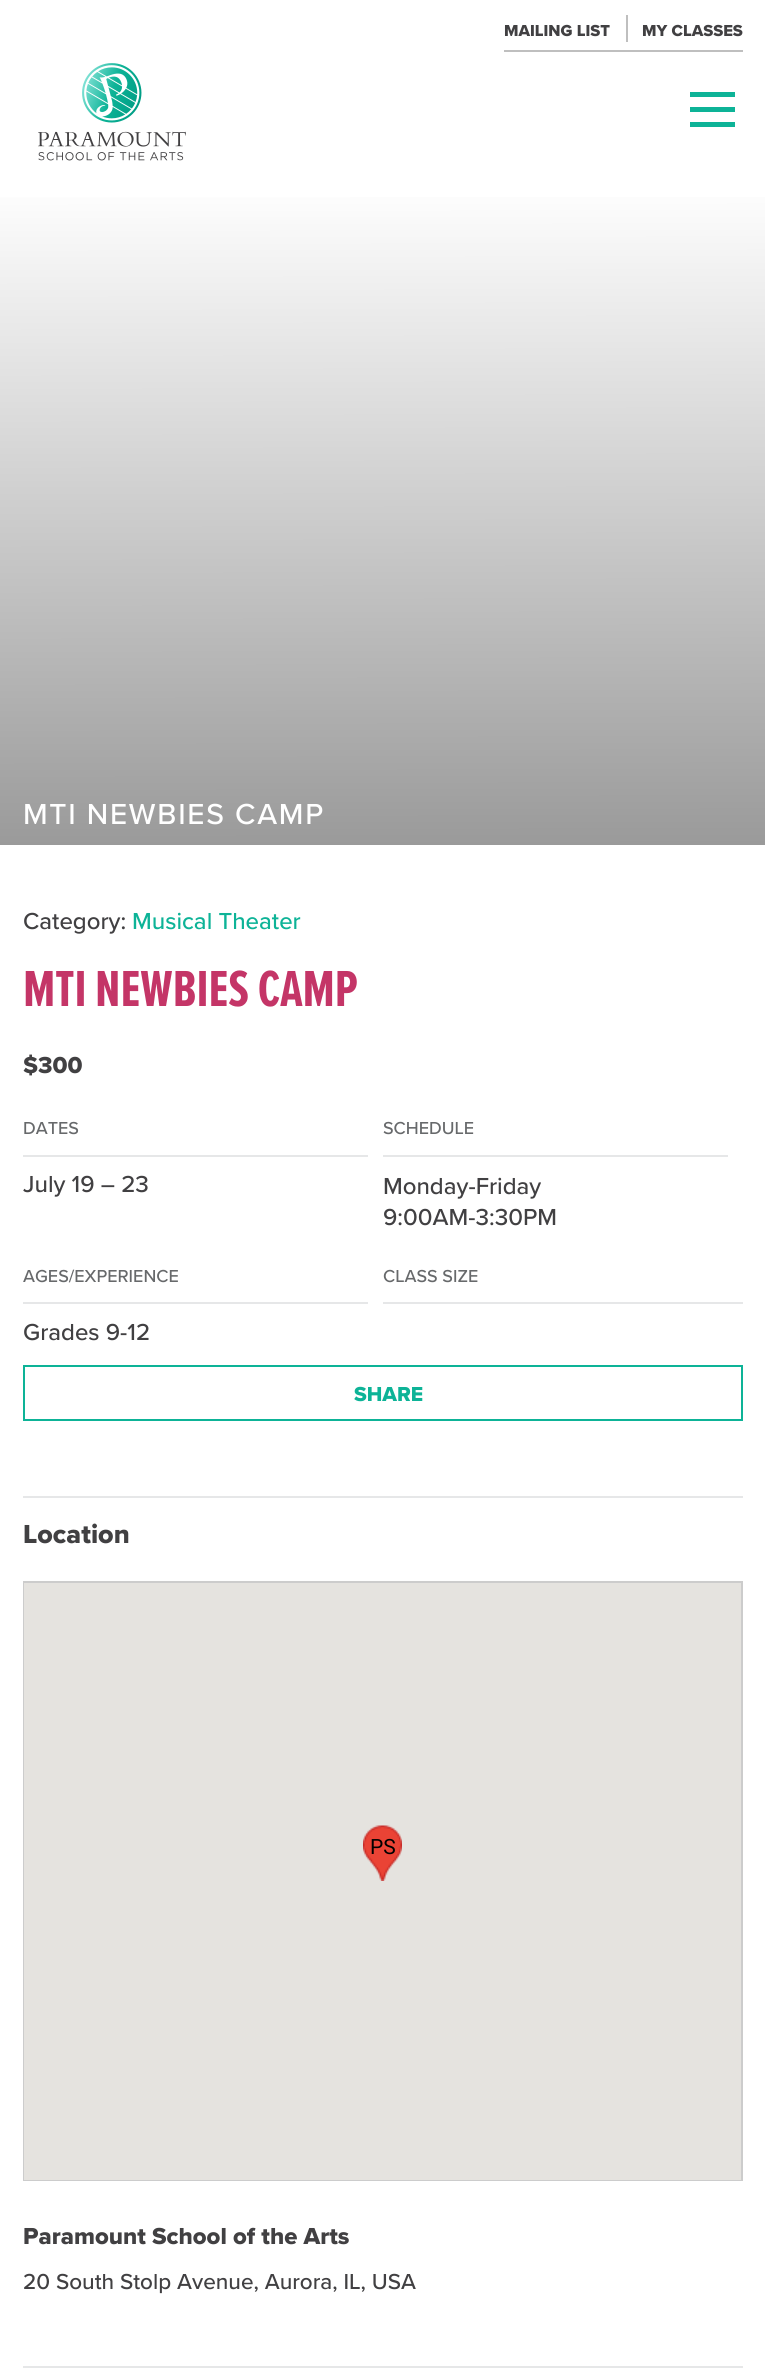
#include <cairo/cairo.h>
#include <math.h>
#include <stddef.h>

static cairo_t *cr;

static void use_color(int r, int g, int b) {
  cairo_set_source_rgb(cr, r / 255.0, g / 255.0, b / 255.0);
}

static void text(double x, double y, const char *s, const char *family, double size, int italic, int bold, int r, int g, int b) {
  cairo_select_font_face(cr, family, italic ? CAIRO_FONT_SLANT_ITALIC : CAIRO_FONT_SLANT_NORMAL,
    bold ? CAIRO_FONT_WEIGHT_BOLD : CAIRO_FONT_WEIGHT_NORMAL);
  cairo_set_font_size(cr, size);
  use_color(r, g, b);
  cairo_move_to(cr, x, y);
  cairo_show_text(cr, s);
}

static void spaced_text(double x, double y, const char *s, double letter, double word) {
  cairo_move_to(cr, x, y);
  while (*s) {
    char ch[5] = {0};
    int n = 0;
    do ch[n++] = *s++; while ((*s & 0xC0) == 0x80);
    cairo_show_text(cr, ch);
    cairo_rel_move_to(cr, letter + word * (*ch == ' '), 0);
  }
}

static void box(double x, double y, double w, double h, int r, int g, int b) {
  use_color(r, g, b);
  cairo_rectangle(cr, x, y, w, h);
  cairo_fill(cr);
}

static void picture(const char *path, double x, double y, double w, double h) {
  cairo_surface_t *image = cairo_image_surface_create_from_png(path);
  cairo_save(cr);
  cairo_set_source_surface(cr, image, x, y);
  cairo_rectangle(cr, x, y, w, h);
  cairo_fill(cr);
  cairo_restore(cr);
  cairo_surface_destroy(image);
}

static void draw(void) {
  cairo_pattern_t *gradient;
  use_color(255, 255, 255);
  cairo_paint(cr);
  box(504, 50, 239, 2, 191, 191, 191);
  box(626, 15, 2, 27, 191, 191, 191);
  picture("img_01.png", 38, 63, 148, 98);
  box(690, 122, 45, 5, 13, 179, 151);
  box(690, 107, 45, 5, 13, 179, 151);
  box(690, 92, 45, 5, 13, 179, 151);
  gradient = cairo_pattern_create_linear(382, 181, 383, 845);
  cairo_pattern_add_color_stop_rgba(gradient, 0, 1, 1, 1, 1);
  cairo_pattern_add_color_stop_rgba(gradient, 1, 0.604, 0.604, 0.604, 1);
  cairo_set_source(cr, gradient);
  cairo_pattern_destroy(gradient);
  cairo_rectangle(cr, 0, 197, 765, 648);
  cairo_fill(cr);
  box(23, 1155, 345, 2, 230, 231, 232);
  box(383, 1155, 345, 2, 230, 231, 232);
  box(23, 1302, 345, 2, 230, 231, 232);
  box(383, 1302, 360, 2, 230, 231, 232);
  cairo_rectangle(cr, 24, 1366, 718, 54);
  use_color(13, 179, 151);
  cairo_stroke(cr);
  box(23, 1496, 720, 2, 230, 231, 232);
  cairo_rectangle(cr, 24, 1582, 718, 598);
  use_color(204, 204, 204);
  cairo_stroke(cr);
  box(24, 1583, 717, 597, 229, 227, 223);
  picture("img_02.png", 363, 1825, 39, 56);
  box(23, 2366, 720, 2, 230, 231, 232);
  text(504, 36, "MAILING LIST", "Proxima Nova ExtraBold", 16.5, 0, 0, 65, 64, 66);
  text(642, 36, "MY CLASSES", "Proxima Nova ExtraBold", 16.5, 0, 0, 65, 64, 66);
  cairo_select_font_face(cr, "Proxima Nova Medium", CAIRO_FONT_SLANT_NORMAL, CAIRO_FONT_WEIGHT_NORMAL);
  cairo_set_font_size(cr, 30);
  use_color(255, 255, 255);
  spaced_text(23, 824, "MTI NEWBIES CAMP", 1.7, 0);
  text(23, 929, "Category:", "Proxima Nova Medium", 24, 0, 0, 65, 64, 66);
  text(132, 929, "Musical Theater", "Proxima Nova Medium", 24, 0, 0, 13, 179, 151);
  text(23, 1006, "MTI NEWBIES CAMP", "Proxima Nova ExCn", 52.5, 0, 1, 196, 53, 103);
  text(23, 1073, "$300", "Proxima Nova ExtraBold", 24, 0, 0, 65, 64, 66);
  text(23, 1134, "DATES", "Proxima Nova Medium", 18, 0, 0, 103, 105, 107);
  text(23, 1192, "July 19 – 23", "Proxima Nova Medium", 24, 0, 0, 65, 64, 66);
  text(383, 1134, "SCHEDULE", "Proxima Nova Medium", 18, 0, 0, 103, 105, 107);
  text(383, 1194, "Monday-Friday", "Proxima Nova Medium", 24, 0, 0, 65, 64, 66);
  text(383, 1225, "9:00AM-3:30PM", "Proxima Nova Medium", 24, 0, 0, 65, 64, 66);
  text(23, 1282, "AGES/EXPERIENCE", "Proxima Nova Medium", 18, 0, 0, 103, 105, 107);
  text(23, 1340, "Grades 9-12", "Proxima Nova Medium", 24, 0, 0, 65, 64, 66);
  text(383, 1282, "CLASS SIZE", "Proxima Nova Medium", 18, 0, 0, 103, 105, 107);
  text(354, 1401, "SHARE", "Proxima Nova ExtraBold", 21, 0, 0, 13, 179, 151);
  text(23, 1543, "Location", "Proxima Nova ExtraBold", 27, 0, 0, 65, 64, 66);
  text(370, 1854, "PS", "Roboto", 21, 0, 0, 0, 0, 0);
  text(23, 2244, "Paramount School of the Arts", "Proxima Nova ExtraBold", 24, 0, 0, 65, 64, 66);
  text(23, 2289, "20 South Stolp Avenue, Aurora, IL, USA", "Proxima Nova Medium", 22.5, 0, 0, 65, 64, 66);
}

int main(void) {
  cairo_surface_t *surface = cairo_image_surface_create(CAIRO_FORMAT_RGB24, 765, 2369);
  cr = cairo_create(surface);
  cairo_font_options_t *options = cairo_font_options_create();
  cairo_font_options_set_hint_metrics(options, CAIRO_HINT_METRICS_OFF);
  cairo_font_options_set_hint_style(options, CAIRO_HINT_STYLE_NONE);
  cairo_set_font_options(cr, options);
  cairo_set_miter_limit(cr, 4);
  draw();
  cairo_surface_write_to_png(surface, "out.png");
  cairo_font_options_destroy(options);
  cairo_destroy(cr);
  cairo_surface_destroy(surface);
  return 0;
}
